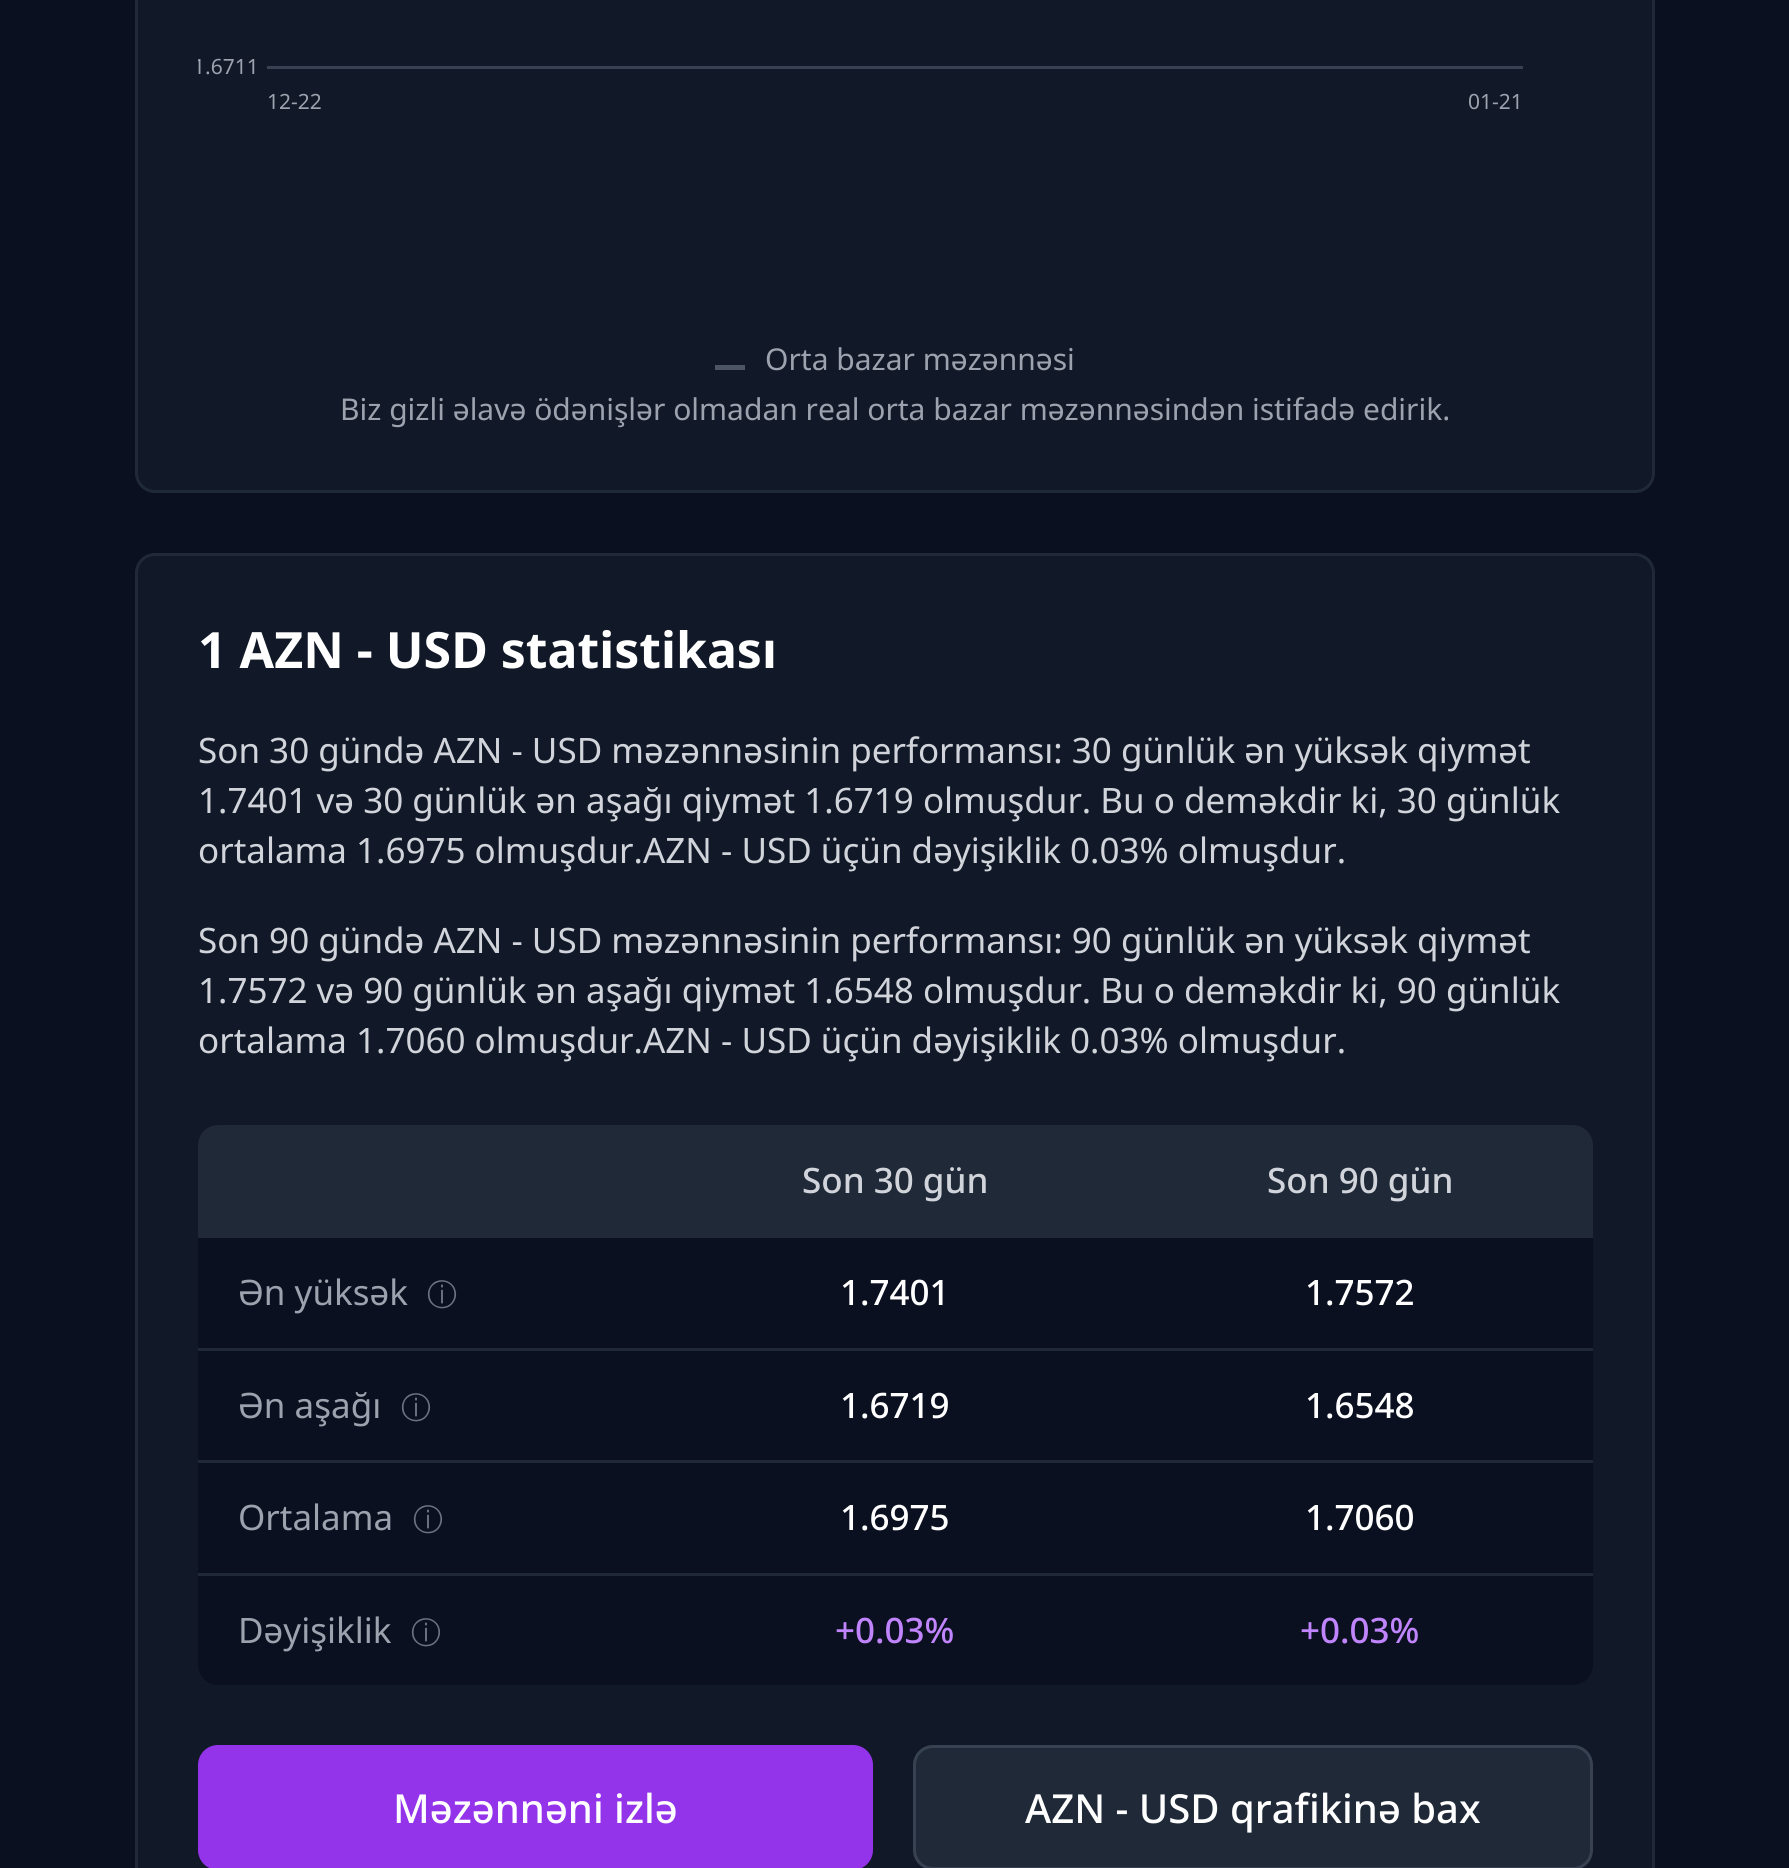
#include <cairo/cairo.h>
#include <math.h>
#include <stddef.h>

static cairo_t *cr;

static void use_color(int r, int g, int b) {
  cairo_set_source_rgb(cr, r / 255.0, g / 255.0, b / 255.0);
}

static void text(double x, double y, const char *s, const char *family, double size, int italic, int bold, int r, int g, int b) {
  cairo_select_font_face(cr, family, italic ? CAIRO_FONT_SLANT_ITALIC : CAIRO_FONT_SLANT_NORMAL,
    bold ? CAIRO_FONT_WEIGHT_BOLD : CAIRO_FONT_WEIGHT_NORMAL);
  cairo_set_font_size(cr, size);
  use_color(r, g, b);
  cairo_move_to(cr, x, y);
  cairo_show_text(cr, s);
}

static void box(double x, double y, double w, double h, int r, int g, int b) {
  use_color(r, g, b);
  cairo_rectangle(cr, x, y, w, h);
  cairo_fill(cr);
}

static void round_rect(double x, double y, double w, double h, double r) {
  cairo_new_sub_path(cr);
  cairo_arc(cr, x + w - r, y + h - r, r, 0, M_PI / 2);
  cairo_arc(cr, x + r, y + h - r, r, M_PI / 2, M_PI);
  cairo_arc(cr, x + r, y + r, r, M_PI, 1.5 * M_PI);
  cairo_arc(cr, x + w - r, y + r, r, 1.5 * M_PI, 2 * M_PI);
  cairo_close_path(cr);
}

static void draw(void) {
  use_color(10, 16, 31);
  cairo_paint(cr);
  use_color(17, 24, 39);
  round_rect(136.5, -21.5, 1517, 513, 18.5);
  cairo_fill_preserve(cr);
  use_color(31, 41, 55);
  cairo_set_line_width(cr, 3);
  cairo_stroke(cr);
  box(267, 66, 1256, 3, 55, 65, 81);
  box(715, 365, 30, 5, 75, 85, 99);
  use_color(17, 24, 39);
  round_rect(136.5, 554.5, 1517, 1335, 18.5);
  cairo_fill_preserve(cr);
  use_color(31, 41, 55);
  cairo_stroke(cr);
  use_color(10, 16, 31);
  round_rect(198, 1125, 1395, 560, 20);
  cairo_fill(cr);
  use_color(31, 41, 55);
  cairo_new_path(cr);
  cairo_move_to(cr, 218, 1125);
  cairo_line_to(cr, 1573, 1125);
  cairo_curve_to(cr, 1584, 1125, 1593, 1134, 1593, 1145);
  cairo_line_to(cr, 1593, 1235);
  cairo_line_to(cr, 198, 1235);
  cairo_line_to(cr, 198, 1145);
  cairo_curve_to(cr, 198, 1134, 207, 1125, 218, 1125);
  cairo_close_path(cr);
  cairo_fill(cr);
  box(198, 1235, 1395, 3, 31, 41, 55);
  box(198, 1348, 1395, 3, 31, 41, 55);
  box(198, 1460, 1395, 3, 31, 41, 55);
  box(198, 1573, 1395, 3, 31, 41, 55);
  use_color(147, 51, 234);
  round_rect(198, 1745, 675, 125, 20);
  cairo_fill(cr);
  use_color(31, 41, 55);
  round_rect(914.5, 1746.5, 677, 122, 18.5);
  cairo_fill_preserve(cr);
  use_color(55, 65, 81);
  cairo_stroke(cr);
  cairo_save(cr);
  cairo_rectangle(cr, 198, 0, 1395, 300);
  cairo_clip(cr);
  text(193, 74, "1.6711", "Noto Sans", 21, 0, 0, 156, 163, 175);
  cairo_restore(cr);
  text(267, 109, "12-22", "Noto Sans", 21, 0, 0, 156, 163, 175);
  text(1468, 109, "01-21", "Noto Sans", 21, 0, 0, 156, 163, 175);
  text(765, 370, "Orta bazar məzənnəsi", "Noto Sans", 30, 0, 0, 156, 163, 175);
  text(340, 420, "Biz gizli əlavə ödənişlər olmadan real orta bazar məzənnəsindən istifadə edirik.", "Noto Sans", 30, 0, 0, 156, 163, 175);
  text(198, 668, "1 AZN - USD statistikası", "Noto Sans", 50, 0, 1, 255, 255, 255);
  text(198, 763, "Son 30 gündə AZN - USD məzənnəsinin performansı: 30 günlük ən yüksək qiymət", "Noto Sans", 35, 0, 0, 209, 213, 219);
  text(198, 813, "1.7401 və 30 günlük ən aşağı qiymət 1.6719 olmuşdur. Bu o deməkdir ki, 30 günlük", "Noto Sans", 35, 0, 0, 209, 213, 219);
  text(198, 863, "ortalama 1.6975 olmuşdur.AZN - USD üçün dəyişiklik 0.03% olmuşdur.", "Noto Sans", 35, 0, 0, 209, 213, 219);
  text(198, 953, "Son 90 gündə AZN - USD məzənnəsinin performansı: 90 günlük ən yüksək qiymət", "Noto Sans", 35, 0, 0, 209, 213, 219);
  text(198, 1003, "1.7572 və 90 günlük ən aşağı qiymət 1.6548 olmuşdur. Bu o deməkdir ki, 90 günlük", "Noto Sans", 35, 0, 0, 209, 213, 219);
  text(198, 1053, "ortalama 1.7060 olmuşdur.AZN - USD üçün dəyişiklik 0.03% olmuşdur.", "Noto Sans", 35, 0, 0, 209, 213, 219);
  text(802, 1193, "Son 30 gün", "Noto Sans Medium", 35, 0, 0, 209, 213, 219);
  text(1267, 1193, "Son 90 gün", "Noto Sans Medium", 35, 0, 0, 209, 213, 219);
  text(238, 1305, "Ən yüksək", "Noto Sans", 35, 0, 0, 156, 163, 175);
  text(427, 1305, "ⓘ", "WenQuanYi Zen Hei Medium", 30, 0, 0, 107, 114, 128);
  text(840, 1305, "1.7401", "Noto Sans Medium", 35, 0, 0, 255, 255, 255);
  text(1305, 1305, "1.7572", "Noto Sans Medium", 35, 0, 0, 255, 255, 255);
  text(238, 1418, "Ən aşağı", "Noto Sans", 35, 0, 0, 156, 163, 175);
  text(401, 1418, "ⓘ", "WenQuanYi Zen Hei Medium", 30, 0, 0, 107, 114, 128);
  text(840, 1418, "1.6719", "Noto Sans Medium", 35, 0, 0, 255, 255, 255);
  text(1305, 1418, "1.6548", "Noto Sans Medium", 35, 0, 0, 255, 255, 255);
  text(238, 1530, "Ortalama", "Noto Sans", 35, 0, 0, 156, 163, 175);
  text(413, 1530, "ⓘ", "WenQuanYi Zen Hei Medium", 30, 0, 0, 107, 114, 128);
  text(840, 1530, "1.6975", "Noto Sans Medium", 35, 0, 0, 255, 255, 255);
  text(1305, 1530, "1.7060", "Noto Sans Medium", 35, 0, 0, 255, 255, 255);
  text(238, 1643, "Dəyişiklik", "Noto Sans", 35, 0, 0, 156, 163, 175);
  text(411, 1643, "ⓘ", "WenQuanYi Zen Hei Medium", 30, 0, 0, 107, 114, 128);
  text(835, 1643, "+0.03%", "Noto Sans Medium", 35, 0, 0, 192, 132, 252);
  text(1300, 1643, "+0.03%", "Noto Sans Medium", 35, 0, 0, 192, 132, 252);
  text(393, 1823, "Məzənnəni izlə", "Noto Sans Medium", 40, 0, 0, 255, 255, 255);
  text(1025, 1823, "AZN - USD qrafikinə bax", "Noto Sans Medium", 40, 0, 0, 255, 255, 255);
}

int main(void) {
  cairo_surface_t *surface = cairo_image_surface_create(CAIRO_FORMAT_RGB24, 1789, 1868);
  cr = cairo_create(surface);
  cairo_font_options_t *options = cairo_font_options_create();
  cairo_font_options_set_hint_metrics(options, CAIRO_HINT_METRICS_OFF);
  cairo_font_options_set_hint_style(options, CAIRO_HINT_STYLE_NONE);
  cairo_set_font_options(cr, options);
  cairo_set_miter_limit(cr, 4);
  draw();
  cairo_surface_write_to_png(surface, "out.png");
  cairo_font_options_destroy(options);
  cairo_destroy(cr);
  cairo_surface_destroy(surface);
  return 0;
}
